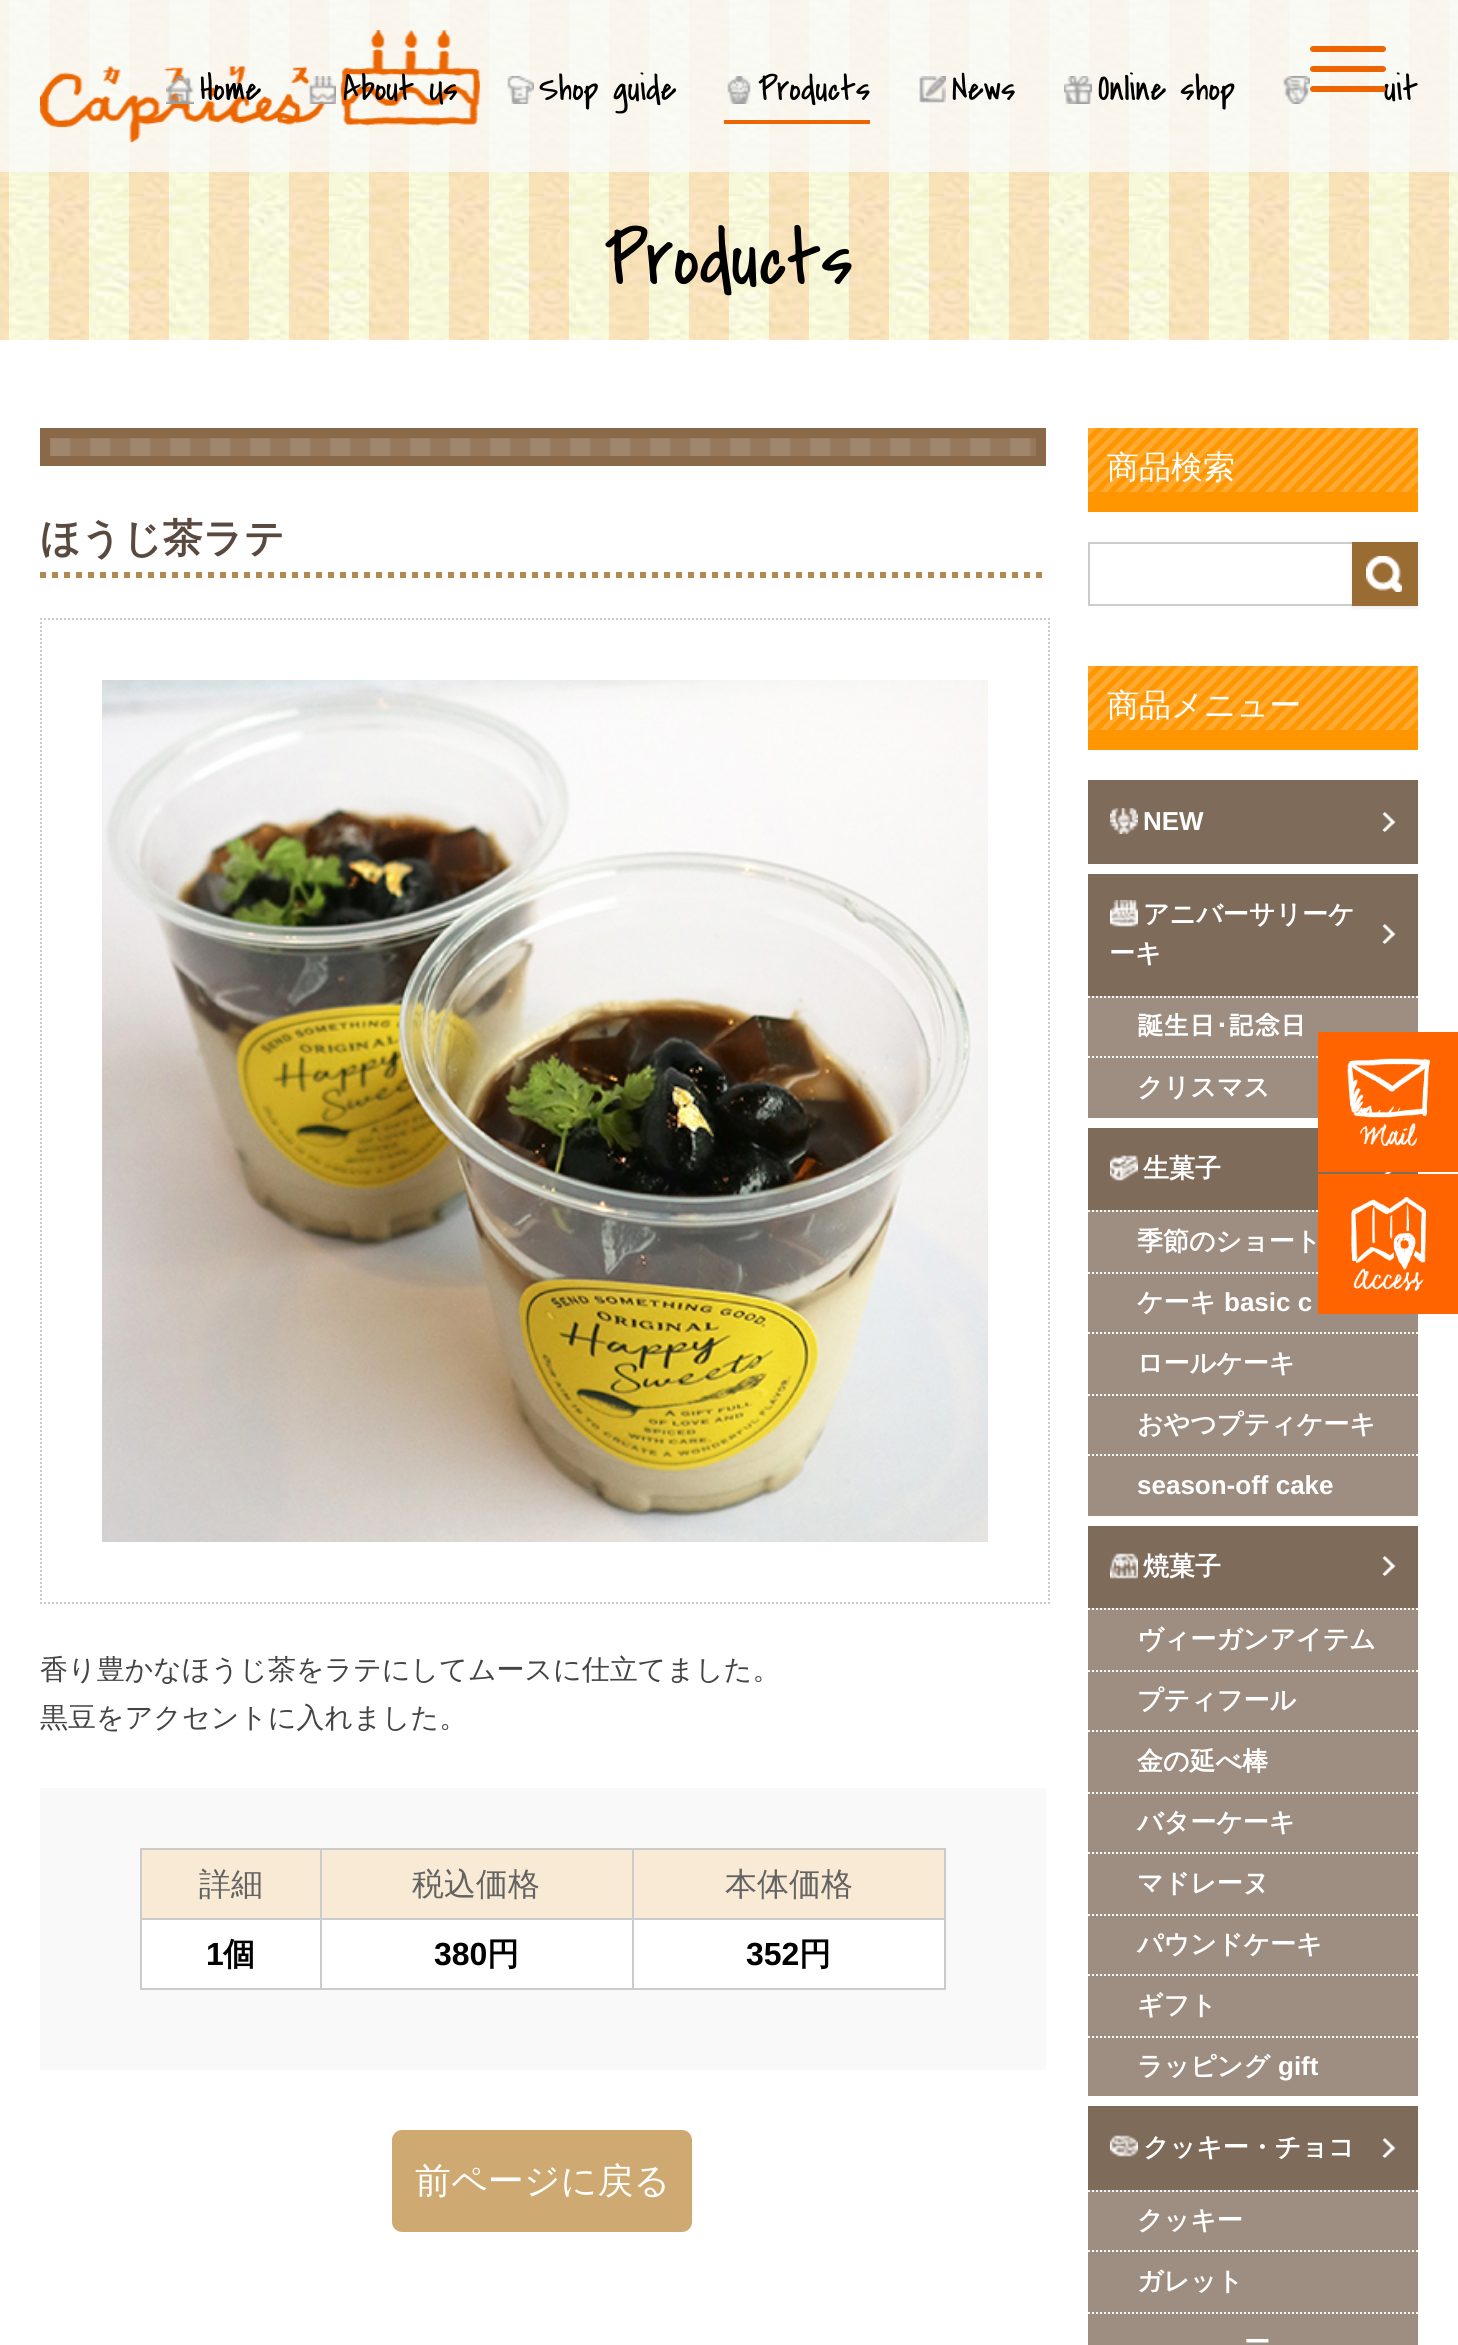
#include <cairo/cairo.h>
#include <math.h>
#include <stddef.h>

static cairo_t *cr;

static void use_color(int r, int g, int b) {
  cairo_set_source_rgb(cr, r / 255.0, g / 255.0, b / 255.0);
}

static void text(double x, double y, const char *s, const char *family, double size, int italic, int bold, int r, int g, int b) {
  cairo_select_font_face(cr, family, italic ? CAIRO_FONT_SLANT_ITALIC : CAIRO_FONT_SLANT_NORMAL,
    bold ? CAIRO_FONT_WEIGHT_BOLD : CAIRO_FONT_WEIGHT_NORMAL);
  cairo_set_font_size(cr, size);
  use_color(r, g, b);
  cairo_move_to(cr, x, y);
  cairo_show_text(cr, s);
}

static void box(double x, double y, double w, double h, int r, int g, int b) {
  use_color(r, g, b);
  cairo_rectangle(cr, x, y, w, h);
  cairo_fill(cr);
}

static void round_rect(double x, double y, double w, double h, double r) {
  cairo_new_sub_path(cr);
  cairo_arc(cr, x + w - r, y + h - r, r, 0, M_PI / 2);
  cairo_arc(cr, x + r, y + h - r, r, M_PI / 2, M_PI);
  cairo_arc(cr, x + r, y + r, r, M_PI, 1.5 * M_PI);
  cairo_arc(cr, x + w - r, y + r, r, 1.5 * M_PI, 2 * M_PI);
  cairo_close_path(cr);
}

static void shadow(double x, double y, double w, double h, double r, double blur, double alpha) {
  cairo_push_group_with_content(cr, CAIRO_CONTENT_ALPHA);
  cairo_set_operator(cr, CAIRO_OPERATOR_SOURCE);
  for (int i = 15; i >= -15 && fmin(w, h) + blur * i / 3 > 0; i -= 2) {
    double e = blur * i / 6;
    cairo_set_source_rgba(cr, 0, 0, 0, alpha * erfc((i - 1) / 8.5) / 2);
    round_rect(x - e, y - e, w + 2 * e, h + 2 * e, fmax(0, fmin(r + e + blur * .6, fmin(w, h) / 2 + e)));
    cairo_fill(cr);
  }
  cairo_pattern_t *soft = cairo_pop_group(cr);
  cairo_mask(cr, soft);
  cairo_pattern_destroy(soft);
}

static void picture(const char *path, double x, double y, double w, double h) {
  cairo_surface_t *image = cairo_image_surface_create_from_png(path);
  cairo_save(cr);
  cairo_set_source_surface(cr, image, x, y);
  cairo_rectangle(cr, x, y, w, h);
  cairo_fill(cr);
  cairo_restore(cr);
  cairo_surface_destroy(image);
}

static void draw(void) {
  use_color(255, 255, 255);
  cairo_paint(cr);
  picture("img_09.png", 0, 0, 1458, 340);
  cairo_set_source_rgba(cr, 0.98, 0.98, 0.98, 0.8);
  cairo_rectangle(cr, 0, 0, 1458, 172);
  cairo_fill(cr);
  use_color(236, 101, 0);
  round_rect(1310, 66, 76, 6, 3);
  cairo_fill(cr);
  round_rect(1310, 46, 76, 6, 3);
  cairo_fill(cr);
  picture("img_01.png", 40, 30, 440, 113);
  picture("img_02.png", 166, 76, 28, 28);
  picture("img_03.png", 309, 76, 27, 28);
  picture("img_04.png", 507, 76, 27, 28);
  box(724, 120, 146, 4, 236, 101, 0);
  picture("img_05.png", 727, 76, 24, 28);
  picture("img_06.png", 919, 76, 27, 27);
  picture("img_07.png", 1064, 76, 28, 28);
  picture("img_08.png", 1283, 76, 27, 28);
  box(50, 438, 986, 18, 138, 105, 73);
  picture("img_10.png", 50, 438, 986, 18);
  cairo_rectangle(cr, 45, 433, 996, 28);
  cairo_set_line_width(cr, 10);
  cairo_stroke(cr);
  cairo_new_path(cr);
  cairo_move_to(cr, 40, 575);
  cairo_line_to(cr, 1046, 575);
  use_color(178, 136, 80);
  cairo_set_line_width(cr, 6);
  cairo_set_dash(cr, (double[]){6, 6}, 2, 0);
  cairo_stroke(cr);
  cairo_new_path(cr);
  cairo_move_to(cr, 40, 619);
  cairo_line_to(cr, 1050, 619);
  use_color(204, 204, 204);
  cairo_set_line_width(cr, 2);
  cairo_set_dash(cr, (double[]){2, 2}, 2, 0);
  cairo_stroke(cr);
  cairo_new_path(cr);
  cairo_move_to(cr, 1049, 618);
  cairo_line_to(cr, 1049, 1604);
  cairo_stroke(cr);
  cairo_new_path(cr);
  cairo_move_to(cr, 40, 1603);
  cairo_line_to(cr, 1050, 1603);
  cairo_stroke(cr);
  cairo_new_path(cr);
  cairo_move_to(cr, 41, 618);
  cairo_line_to(cr, 41, 1604);
  cairo_stroke(cr);
  picture("img_11.png", 102, 680, 886, 862);
  box(40, 1788, 1006, 282, 249, 249, 249);
  box(142, 1850, 178, 68, 248, 234, 212);
  box(632, 1848, 314, 2, 204, 204, 204);
  box(632, 1918, 314, 2, 204, 204, 204);
  box(944, 1918, 2, 72, 204, 204, 204);
  box(632, 1988, 314, 2, 204, 204, 204);
  box(632, 1918, 2, 72, 204, 204, 204);
  box(320, 1918, 314, 2, 204, 204, 204);
  box(632, 1848, 2, 72, 204, 204, 204);
  box(320, 1848, 314, 2, 204, 204, 204);
  box(320, 1988, 314, 2, 204, 204, 204);
  box(320, 1918, 2, 72, 204, 204, 204);
  box(140, 1918, 182, 2, 204, 204, 204);
  box(320, 1848, 2, 72, 204, 204, 204);
  box(140, 1848, 182, 2, 204, 204, 204);
  box(140, 1988, 182, 2, 204, 204, 204);
  box(140, 1918, 2, 72, 204, 204, 204);
  box(140, 1848, 2, 72, 204, 204, 204);
  box(322, 1850, 310, 68, 248, 234, 212);
  box(634, 1850, 310, 68, 248, 234, 212);
  box(944, 1848, 2, 72, 204, 204, 204);
  box(142, 1920, 178, 68, 255, 255, 255);
  box(322, 1920, 310, 68, 255, 255, 255);
  box(634, 1920, 310, 68, 255, 255, 255);
  use_color(207, 169, 114);
  round_rect(392, 2130, 300, 102, 10);
  cairo_fill(cr);
  box(1088, 428, 330, 84, 255, 150, 0);
  picture("img_12.png", 1088, 428, 330, 64);
  cairo_rectangle(cr, 1089, 543, 266, 62);
  use_color(204, 204, 204);
  cairo_set_dash(cr, NULL, 0, 0);
  cairo_stroke(cr);
  use_color(64, 64, 64);
  shadow(1352, 544, 66, 64, 0, 2, 0.1);
  box(1352, 542, 66, 64, 153, 108, 51);
  picture("img_13.png", 1366, 556, 36, 36);
  box(1088, 666, 330, 84, 255, 150, 0);
  picture("img_14.png", 1088, 666, 330, 64);
  box(1088, 780, 330, 84, 126, 107, 90);
  picture("img_15.png", 1382, 812, 14, 20);
  picture("img_16.png", 1110, 808, 28, 26);
  box(1088, 874, 330, 122, 126, 107, 90);
  picture("img_15.png", 1382, 924, 14, 20);
  picture("img_17.png", 1110, 900, 28, 27);
  box(1088, 996, 330, 60, 158, 142, 129);
  cairo_new_path(cr);
  cairo_move_to(cr, 1088, 997);
  cairo_line_to(cr, 1418, 997);
  use_color(255, 255, 255);
  cairo_set_dash(cr, (double[]){2, 2}, 2, 0);
  cairo_stroke(cr);
  box(1088, 1056, 230, 62, 158, 142, 129);
  cairo_new_path(cr);
  cairo_move_to(cr, 1088, 1057);
  cairo_line_to(cr, 1418, 1057);
  use_color(255, 255, 255);
  cairo_stroke(cr);
  box(1088, 1128, 330, 82, 126, 107, 90);
  picture("img_18.png", 1384, 1172, 8, 2);
  picture("img_19.png", 1110, 1155, 28, 26);
  box(1088, 1210, 230, 62, 158, 142, 129);
  cairo_new_path(cr);
  cairo_move_to(cr, 1088, 1211);
  cairo_line_to(cr, 1418, 1211);
  use_color(255, 255, 255);
  cairo_stroke(cr);
  box(1088, 1272, 330, 244, 158, 142, 129);
  cairo_new_path(cr);
  cairo_move_to(cr, 1088, 1273);
  cairo_line_to(cr, 1418, 1273);
  use_color(255, 255, 255);
  cairo_stroke(cr);
  cairo_new_path(cr);
  cairo_move_to(cr, 1088, 1333);
  cairo_line_to(cr, 1418, 1333);
  cairo_stroke(cr);
  cairo_new_path(cr);
  cairo_move_to(cr, 1088, 1395);
  cairo_line_to(cr, 1418, 1395);
  cairo_stroke(cr);
  cairo_new_path(cr);
  cairo_move_to(cr, 1088, 1455);
  cairo_line_to(cr, 1418, 1455);
  cairo_stroke(cr);
  box(1088, 1526, 330, 82, 126, 107, 90);
  picture("img_20.png", 1382, 1556, 14, 20);
  picture("img_21.png", 1110, 1553, 28, 26);
  box(1088, 1608, 330, 488, 158, 142, 129);
  cairo_new_path(cr);
  cairo_move_to(cr, 1088, 1609);
  cairo_line_to(cr, 1418, 1609);
  use_color(255, 255, 255);
  cairo_stroke(cr);
  cairo_new_path(cr);
  cairo_move_to(cr, 1088, 1671);
  cairo_line_to(cr, 1418, 1671);
  cairo_stroke(cr);
  cairo_new_path(cr);
  cairo_move_to(cr, 1088, 1731);
  cairo_line_to(cr, 1418, 1731);
  cairo_stroke(cr);
  cairo_new_path(cr);
  cairo_move_to(cr, 1088, 1793);
  cairo_line_to(cr, 1418, 1793);
  cairo_stroke(cr);
  cairo_new_path(cr);
  cairo_move_to(cr, 1088, 1853);
  cairo_line_to(cr, 1418, 1853);
  cairo_stroke(cr);
  cairo_new_path(cr);
  cairo_move_to(cr, 1088, 1915);
  cairo_line_to(cr, 1418, 1915);
  cairo_stroke(cr);
  cairo_new_path(cr);
  cairo_move_to(cr, 1088, 1975);
  cairo_line_to(cr, 1418, 1975);
  cairo_stroke(cr);
  cairo_new_path(cr);
  cairo_move_to(cr, 1088, 2037);
  cairo_line_to(cr, 1418, 2037);
  cairo_stroke(cr);
  box(1088, 2106, 330, 84, 126, 107, 90);
  picture("img_15.png", 1382, 2138, 14, 20);
  picture("img_22.png", 1110, 2135, 28, 22);
  box(1088, 2190, 330, 155, 158, 142, 129);
  cairo_new_path(cr);
  cairo_move_to(cr, 1088, 2191);
  cairo_line_to(cr, 1418, 2191);
  use_color(255, 255, 255);
  cairo_stroke(cr);
  cairo_new_path(cr);
  cairo_move_to(cr, 1088, 2251);
  cairo_line_to(cr, 1418, 2251);
  cairo_stroke(cr);
  cairo_new_path(cr);
  cairo_move_to(cr, 1088, 2313);
  cairo_line_to(cr, 1418, 2313);
  cairo_stroke(cr);
  box(1318, 1032, 140, 140, 255, 100, 0);
  picture("img_23.png", 1347, 1058, 83, 88);
  box(1318, 1174, 140, 140, 255, 100, 0);
  picture("img_24.png", 1351, 1197, 75, 94);
  text(200, 100, "Home", "Covered By Your Grace", 36, 0, 0, 0, 0, 0);
  text(343, 100, "About Us", "Covered By Your Grace", 36, 0, 0, 0, 0, 0);
  text(539, 100, "Shop guide", "Covered By Your Grace", 36, 0, 0, 0, 0, 0);
  text(758, 100, "Products", "Covered By Your Grace", 36, 0, 0, 0, 0, 0);
  text(952, 100, "News", "Covered By Your Grace", 36, 0, 0, 0, 0, 0);
  text(1098, 100, "Online shop", "Covered By Your Grace", 36, 0, 0, 0, 0, 0);
  text(1384, 100, "uit", "Covered By Your Grace", 36, 0, 0, 0, 0, 0);
  use_color(236, 101, 0);
  round_rect(1310, 86, 76, 6, 3);
  cairo_fill(cr);
  text(604, 284, "Products", "Covered By Your Grace", 80, 0, 0, 0, 0, 0);
  text(40, 552, "ほうじ茶ラテ", "WenQuanYi Zen Hei", 40, 0, 1, 89, 73, 63);
  text(40, 1679, "香り豊かなほうじ茶をラテにしてムースに仕立てました。", "WenQuanYi Zen Hei Medium", 28, 0, 0, 68, 68, 68);
  text(40, 1727, "黒豆をアクセントに入れました。", "WenQuanYi Zen Hei Medium", 28, 0, 0, 68, 68, 68);
  text(199, 1895, "詳細", "WenQuanYi Zen Hei Medium", 32, 0, 0, 99, 99, 99);
  text(412, 1895, "税込価格", "WenQuanYi Zen Hei Medium", 32, 0, 0, 99, 99, 99);
  text(725, 1895, "本体価格", "WenQuanYi Zen Hei Medium", 32, 0, 0, 99, 99, 99);
  text(206, 1965, "1", "Liberation Sans", 32, 0, 1, 0, 0, 0);
  text(223, 1965, "個", "WenQuanYi Zen Hei", 32, 0, 1, 0, 0, 0);
  text(434, 1965, "380", "Liberation Sans", 32, 0, 1, 0, 0, 0);
  text(487, 1965, "円", "WenQuanYi Zen Hei", 32, 0, 1, 0, 0, 0);
  text(746, 1965, "352", "Liberation Sans", 32, 0, 1, 0, 0, 0);
  text(799, 1965, "円", "WenQuanYi Zen Hei", 32, 0, 1, 0, 0, 0);
  text(415, 2193, "前ページに戻る", "WenQuanYi Zen Hei Medium", 36, 0, 0, 255, 255, 255);
  text(1107, 478, "商品検索", "WenQuanYi Zen Hei Medium", 32, 0, 0, 255, 255, 255);
  text(1107, 716, "商品メニュー", "WenQuanYi Zen Hei Medium", 32, 0, 0, 255, 255, 255);
  text(1143, 830, "NEW", "Liberation Sans", 26, 0, 1, 255, 255, 255);
  text(1143, 923, "アニバーサリーケ", "WenQuanYi Zen Hei", 26, 0, 1, 255, 255, 255);
  text(1109, 962, "ーキ", "WenQuanYi Zen Hei", 26, 0, 1, 255, 255, 255);
  text(1137, 1035, "誕生日･記念日", "IPAPGothic", 26, 0, 1, 255, 255, 255);
  text(1137, 1096, "クリスマス", "WenQuanYi Zen Hei", 26, 0, 1, 255, 255, 255);
  text(1143, 1177, "生菓子", "WenQuanYi Zen Hei", 26, 0, 1, 255, 255, 255);
  text(1137, 1250, "季節のショート", "WenQuanYi Zen Hei", 26, 0, 1, 255, 255, 255);
  text(1137, 1311, "ケーキ", "WenQuanYi Zen Hei", 26, 0, 1, 255, 255, 255);
  text(1224, 1311, "basic c", "Liberation Sans", 26, 0, 1, 255, 255, 255);
  text(1137, 1372, "ロールケーキ", "WenQuanYi Zen Hei", 26, 0, 1, 255, 255, 255);
  text(1137, 1433, "おやつプティケーキ", "WenQuanYi Zen Hei", 26, 0, 1, 255, 255, 255);
  text(1137, 1494, "season-off cake", "Liberation Sans", 26, 0, 1, 255, 255, 255);
  text(1143, 1575, "焼菓子", "WenQuanYi Zen Hei", 26, 0, 1, 255, 255, 255);
  text(1137, 1648, "ヴィーガンアイテム", "WenQuanYi Zen Hei", 26, 0, 1, 255, 255, 255);
  text(1137, 1709, "プティフール", "WenQuanYi Zen Hei", 26, 0, 1, 255, 255, 255);
  text(1137, 1770, "金の延べ棒", "WenQuanYi Zen Hei", 26, 0, 1, 255, 255, 255);
  text(1137, 1831, "バターケーキ", "WenQuanYi Zen Hei", 26, 0, 1, 255, 255, 255);
  text(1137, 1892, "マドレーヌ", "WenQuanYi Zen Hei", 26, 0, 1, 255, 255, 255);
  text(1137, 1953, "パウンドケーキ", "WenQuanYi Zen Hei", 26, 0, 1, 255, 255, 255);
  text(1137, 2014, "ギフト", "WenQuanYi Zen Hei", 26, 0, 1, 255, 255, 255);
  text(1137, 2075, "ラッピング", "WenQuanYi Zen Hei", 26, 0, 1, 255, 255, 255);
  text(1278, 2075, "gift", "Liberation Sans", 26, 0, 1, 255, 255, 255);
  text(1143, 2156, "クッキー・チョコ", "WenQuanYi Zen Hei", 26, 0, 1, 255, 255, 255);
  text(1137, 2229, "クッキー", "WenQuanYi Zen Hei", 26, 0, 1, 255, 255, 255);
  text(1137, 2290, "ガレット", "WenQuanYi Zen Hei", 26, 0, 1, 255, 255, 255);
  text(1244, 2351, "ー", "WenQuanYi Zen Hei", 26, 0, 1, 255, 255, 255);
}

int main(void) {
  cairo_surface_t *surface = cairo_image_surface_create(CAIRO_FORMAT_RGB24, 1458, 2345);
  cr = cairo_create(surface);
  cairo_font_options_t *options = cairo_font_options_create();
  cairo_font_options_set_hint_metrics(options, CAIRO_HINT_METRICS_OFF);
  cairo_font_options_set_hint_style(options, CAIRO_HINT_STYLE_NONE);
  cairo_set_font_options(cr, options);
  cairo_set_miter_limit(cr, 4);
  draw();
  cairo_surface_write_to_png(surface, "out.png");
  cairo_font_options_destroy(options);
  cairo_destroy(cr);
  cairo_surface_destroy(surface);
  return 0;
}
